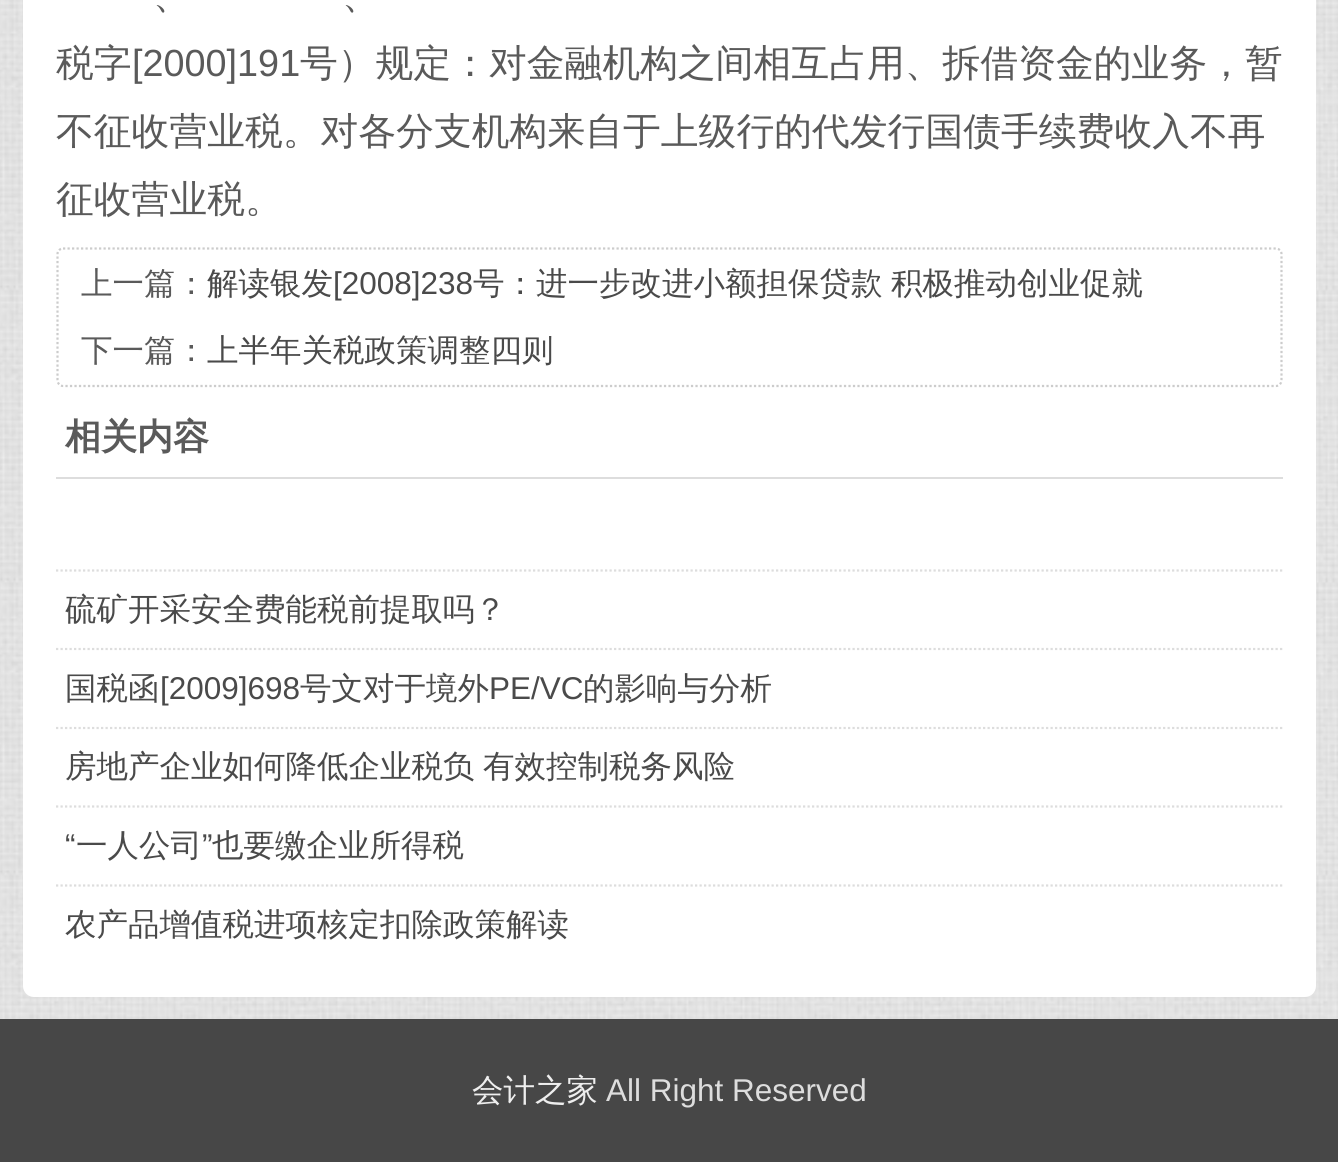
#include <cairo/cairo.h>
#include <math.h>
#include <stddef.h>

static cairo_t *cr;

static void use_color(int r, int g, int b) {
  cairo_set_source_rgb(cr, r / 255.0, g / 255.0, b / 255.0);
}

static void text(double x, double y, const char *s, const char *family, double size, int italic, int bold, int r, int g, int b) {
  cairo_select_font_face(cr, family, italic ? CAIRO_FONT_SLANT_ITALIC : CAIRO_FONT_SLANT_NORMAL,
    bold ? CAIRO_FONT_WEIGHT_BOLD : CAIRO_FONT_WEIGHT_NORMAL);
  cairo_set_font_size(cr, size);
  use_color(r, g, b);
  cairo_move_to(cr, x, y);
  cairo_show_text(cr, s);
}

static void spaced_text(double x, double y, const char *s, double letter, double word) {
  cairo_move_to(cr, x, y);
  while (*s) {
    char ch[5] = {0};
    int n = 0;
    do ch[n++] = *s++; while ((*s & 0xC0) == 0x80);
    cairo_show_text(cr, ch);
    cairo_rel_move_to(cr, letter + word * (*ch == ' '), 0);
  }
}

static void box(double x, double y, double w, double h, int r, int g, int b) {
  use_color(r, g, b);
  cairo_rectangle(cr, x, y, w, h);
  cairo_fill(cr);
}

static void round_rect(double x, double y, double w, double h, double r) {
  cairo_new_sub_path(cr);
  cairo_arc(cr, x + w - r, y + h - r, r, 0, M_PI / 2);
  cairo_arc(cr, x + r, y + h - r, r, M_PI / 2, M_PI);
  cairo_arc(cr, x + r, y + r, r, M_PI, 1.5 * M_PI);
  cairo_arc(cr, x + w - r, y + r, r, 1.5 * M_PI, 2 * M_PI);
  cairo_close_path(cr);
}

static void picture(const char *path, double x, double y, double w, double h) {
  cairo_surface_t *image = cairo_image_surface_create_from_png(path);
  cairo_save(cr);
  cairo_set_source_surface(cr, image, x, y);
  cairo_rectangle(cr, x, y, w, h);
  cairo_fill(cr);
  cairo_restore(cr);
  cairo_surface_destroy(image);
}

static void draw(void) {
  use_color(255, 255, 255);
  cairo_paint(cr);
  picture("img_01.png", 0, 0, 1338, 1019);
  use_color(255, 255, 255);
  round_rect(23, -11, 1293, 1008, 11);
  cairo_fill(cr);
  cairo_new_path(cr);
  cairo_move_to(cr, 63, 248.5);
  cairo_line_to(cr, 1276, 248.5);
  cairo_curve_to(cr, 1279, 248.5, 1281.5, 251, 1281.5, 254);
  cairo_line_to(cr, 1281.5, 380);
  cairo_curve_to(cr, 1281.5, 383.5, 1279, 386, 1276, 386);
  cairo_line_to(cr, 63, 386);
  cairo_curve_to(cr, 60, 386, 57.5, 383.5, 57.5, 380);
  cairo_line_to(cr, 57.5, 254);
  cairo_curve_to(cr, 57.5, 251, 60, 248.5, 63, 248.5);
  cairo_close_path(cr);
  use_color(204, 204, 204);
  cairo_set_line_width(cr, 2.2);
  cairo_set_dash(cr, (double[]){2.25, 2.25}, 2, 0);
  cairo_stroke(cr);
  box(56, 477, 1227, 2, 221, 221, 221);
  cairo_new_path(cr);
  cairo_move_to(cr, 56, 570.5);
  cairo_line_to(cr, 1282.5, 570.5);
  cairo_stroke(cr);
  cairo_new_path(cr);
  cairo_move_to(cr, 56, 649);
  cairo_line_to(cr, 1282.5, 649);
  cairo_stroke(cr);
  cairo_new_path(cr);
  cairo_move_to(cr, 56, 728);
  cairo_line_to(cr, 1282.5, 728);
  cairo_stroke(cr);
  cairo_new_path(cr);
  cairo_move_to(cr, 56, 806.5);
  cairo_line_to(cr, 1282.5, 806.5);
  cairo_stroke(cr);
  cairo_new_path(cr);
  cairo_move_to(cr, 56, 885.5);
  cairo_line_to(cr, 1282.5, 885.5);
  cairo_stroke(cr);
  box(0, 1019, 1338, 143, 71, 71, 71);
  text(153, 8, "、", "WenQuanYi Zen Hei Medium", 37.8, 0, 0, 90, 90, 90);
  text(342, 8, "、", "WenQuanYi Zen Hei Medium", 37.8, 0, 0, 90, 90, 90);
  text(56, 76, "税字", "WenQuanYi Zen Hei Medium", 37.8, 0, 0, 90, 90, 90);
  text(132, 76, "[2000]191", "Liberation Sans", 37.8, 0, 0, 90, 90, 90);
  text(300, 76, "号）规定：对金融机构之间相互占用、拆借资金的业务，暂", "WenQuanYi Zen Hei Medium", 37.8, 0, 0, 90, 90, 90);
  text(56, 144, "不征收营业税。对各分支机构来自于上级行的代发行国债手续费收入不再", "WenQuanYi Zen Hei Medium", 37.8, 0, 0, 90, 90, 90);
  text(56, 212, "征收营业税。", "WenQuanYi Zen Hei Medium", 37.8, 0, 0, 90, 90, 90);
  text(81, 294, "上一篇：", "WenQuanYi Zen Hei Medium", 31.5, 0, 0, 90, 90, 90);
  text(207, 294, "解读银发", "WenQuanYi Zen Hei Medium", 31.5, 0, 0, 74, 74, 74);
  text(333, 294, "[2008]238", "Liberation Sans", 31.5, 0, 0, 74, 74, 74);
  cairo_select_font_face(cr, "WenQuanYi Zen Hei Medium", CAIRO_FONT_SLANT_NORMAL, CAIRO_FONT_WEIGHT_NORMAL);
  spaced_text(473, 294, "号：进一步改进小额担保贷款 积极推动创业促就", 0, -1);
  text(81, 361, "下一篇：", "WenQuanYi Zen Hei Medium", 31.5, 0, 0, 90, 90, 90);
  text(207, 361, "上半年关税政策调整四则", "WenQuanYi Zen Hei Medium", 31.5, 0, 0, 74, 74, 74);
  text(65, 449, "相关内容", "WenQuanYi Zen Hei", 36, 0, 1, 90, 90, 90);
  text(65, 620, "硫矿开采安全费能税前提取吗？", "WenQuanYi Zen Hei Medium", 31.5, 0, 0, 74, 74, 74);
  text(65, 699, "国税函", "WenQuanYi Zen Hei Medium", 31.5, 0, 0, 74, 74, 74);
  text(160, 699, "[2009]698", "Liberation Sans", 31.5, 0, 0, 74, 74, 74);
  text(300, 699, "号文对于境外", "WenQuanYi Zen Hei Medium", 31.5, 0, 0, 74, 74, 74);
  text(489, 699, "PE/VC", "Liberation Sans", 31.5, 0, 0, 74, 74, 74);
  text(583, 699, "的影响与分析", "WenQuanYi Zen Hei Medium", 31.5, 0, 0, 74, 74, 74);
  spaced_text(65, 777, "房地产企业如何降低企业税负 有效控制税务风险", 0, -1);
  text(65, 856, "“", "Liberation Sans", 31.5, 0, 0, 74, 74, 74);
  text(76, 856, "一人公司", "WenQuanYi Zen Hei Medium", 31.5, 0, 0, 74, 74, 74);
  text(202, 856, "”", "Liberation Sans", 31.5, 0, 0, 74, 74, 74);
  text(212, 856, "也要缴企业所得税", "WenQuanYi Zen Hei Medium", 31.5, 0, 0, 74, 74, 74);
  text(65, 935, "农产品增值税进项核定扣除政策解读", "WenQuanYi Zen Hei Medium", 31.5, 0, 0, 74, 74, 74);
  text(472, 1101, "会计之家", "WenQuanYi Zen Hei Medium", 31.5, 0, 0, 238, 238, 238);
  text(606, 1101, "All Right Reserved", "Liberation Sans", 31.5, 0, 0, 221, 221, 221);
}

int main(void) {
  cairo_surface_t *surface = cairo_image_surface_create(CAIRO_FORMAT_RGB24, 1338, 1162);
  cr = cairo_create(surface);
  cairo_font_options_t *options = cairo_font_options_create();
  cairo_font_options_set_hint_metrics(options, CAIRO_HINT_METRICS_OFF);
  cairo_font_options_set_hint_style(options, CAIRO_HINT_STYLE_NONE);
  cairo_set_font_options(cr, options);
  cairo_set_miter_limit(cr, 4);
  draw();
  cairo_surface_write_to_png(surface, "out.png");
  cairo_font_options_destroy(options);
  cairo_destroy(cr);
  cairo_surface_destroy(surface);
  return 0;
}
